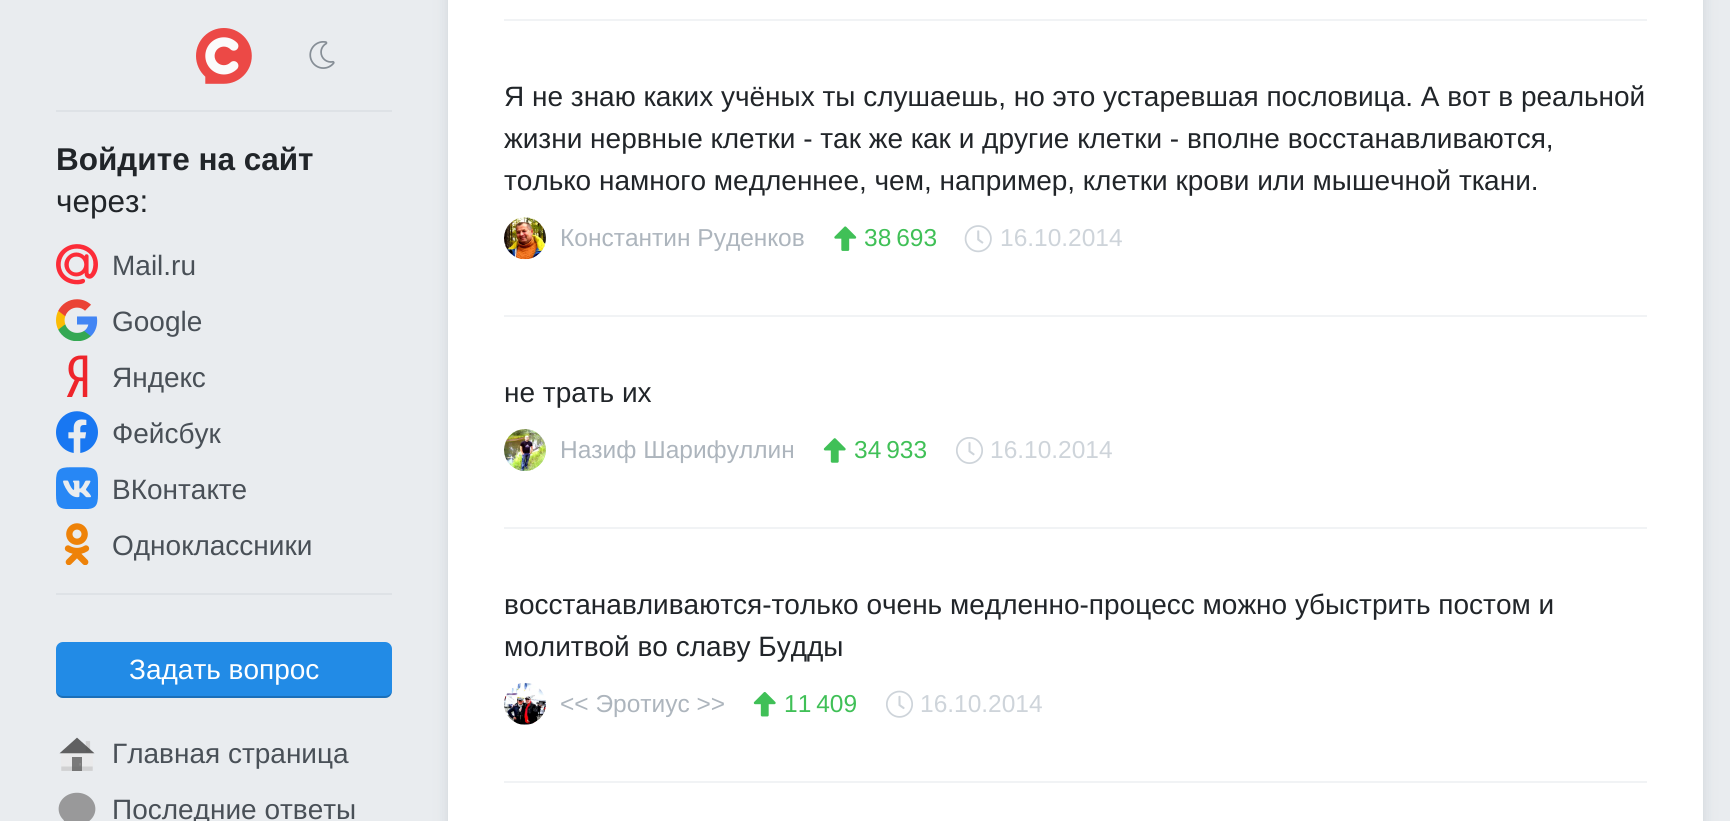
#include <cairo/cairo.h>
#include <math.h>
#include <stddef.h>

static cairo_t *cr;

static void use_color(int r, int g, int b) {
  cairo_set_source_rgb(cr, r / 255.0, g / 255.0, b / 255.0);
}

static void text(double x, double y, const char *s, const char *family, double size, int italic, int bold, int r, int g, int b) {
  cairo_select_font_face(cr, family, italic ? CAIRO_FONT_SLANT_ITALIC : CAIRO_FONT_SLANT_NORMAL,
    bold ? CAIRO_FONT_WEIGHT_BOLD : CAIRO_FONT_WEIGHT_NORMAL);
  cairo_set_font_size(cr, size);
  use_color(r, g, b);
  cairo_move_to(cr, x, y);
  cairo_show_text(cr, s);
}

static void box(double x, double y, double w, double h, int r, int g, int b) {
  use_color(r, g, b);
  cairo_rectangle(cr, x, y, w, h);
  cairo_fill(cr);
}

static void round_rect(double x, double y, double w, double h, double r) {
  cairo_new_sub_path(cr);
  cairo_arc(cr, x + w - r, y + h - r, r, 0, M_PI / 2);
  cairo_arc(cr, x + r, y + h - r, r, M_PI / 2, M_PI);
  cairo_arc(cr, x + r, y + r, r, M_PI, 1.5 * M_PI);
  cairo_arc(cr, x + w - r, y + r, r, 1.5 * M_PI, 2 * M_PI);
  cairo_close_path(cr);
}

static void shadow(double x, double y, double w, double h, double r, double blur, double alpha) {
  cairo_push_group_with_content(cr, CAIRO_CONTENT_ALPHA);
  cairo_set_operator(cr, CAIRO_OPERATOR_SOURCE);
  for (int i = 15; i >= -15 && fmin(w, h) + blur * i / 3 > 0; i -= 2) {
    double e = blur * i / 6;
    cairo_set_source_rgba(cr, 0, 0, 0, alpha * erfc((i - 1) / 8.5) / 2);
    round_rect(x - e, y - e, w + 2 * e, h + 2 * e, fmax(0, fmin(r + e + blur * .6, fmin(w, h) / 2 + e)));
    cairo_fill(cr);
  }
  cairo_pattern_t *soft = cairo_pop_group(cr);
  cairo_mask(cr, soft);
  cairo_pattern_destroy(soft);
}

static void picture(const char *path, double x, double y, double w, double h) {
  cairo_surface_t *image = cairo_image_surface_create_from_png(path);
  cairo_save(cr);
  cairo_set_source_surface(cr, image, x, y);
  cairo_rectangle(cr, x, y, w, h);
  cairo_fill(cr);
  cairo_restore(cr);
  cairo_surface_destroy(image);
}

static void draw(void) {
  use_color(233, 236, 239);
  cairo_paint(cr);
  box(56, 110, 336, 2, 222, 226, 230);
  picture("img_01.png", 196, 28, 56, 56);
  picture("img_02.png", 309, 41, 26, 28);
  picture("img_03.png", 56, 244, 42, 41);
  picture("img_04.png", 56, 299, 42, 42);
  picture("img_05.png", 66, 355, 22, 42);
  picture("img_06.png", 56, 411, 42, 42);
  picture("img_07.png", 56, 467, 42, 42);
  picture("img_08.png", 64, 523, 26, 42);
  box(56, 593, 336, 2, 222, 226, 230);
  use_color(34, 139, 230);
  round_rect(56, 642, 336, 56, 7);
  cairo_fill(cr);
  cairo_set_source_rgba(cr, 0, 0, 0, 0.2);
  cairo_new_path(cr);
  cairo_move_to(cr, 56, 690);
  cairo_curve_to(cr, 56, 694, 58, 698, 63, 698);
  cairo_line_to(cr, 385, 698);
  cairo_curve_to(cr, 390, 698, 392, 694, 392, 690);
  cairo_curve_to(cr, 392, 693, 389, 696, 385, 696);
  cairo_line_to(cr, 63, 696);
  cairo_curve_to(cr, 59, 696, 56, 693, 56, 690);
  cairo_close_path(cr);
  cairo_fill(cr);
  picture("img_09.png", 59, 737, 36, 34);
  picture("img_10.png", 58, 792, 38, 29);
  use_color(206, 212, 218);
  shadow(448, -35, 1255, 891, 14, 7, 1);
  box(448, 0, 1255, 821, 255, 255, 255);
  box(504, 19, 1143, 2, 241, 243, 245);
  box(504, 315, 1143, 2, 241, 243, 245);
  picture("img_11.png", 504, 217, 42, 43);
  picture("img_12.png", 834, 226, 23, 25);
  picture("img_13.png", 964, 225, 28, 28);
  box(504, 527, 1143, 2, 241, 243, 245);
  picture("img_14.png", 504, 429, 42, 42);
  picture("img_15.png", 823, 438, 23, 25);
  picture("img_16.png", 956, 437, 27, 27);
  box(504, 781, 1143, 2, 241, 243, 245);
  picture("img_17.png", 504, 682, 42, 43);
  picture("img_18.png", 753, 692, 23, 25);
  picture("img_19.png", 886, 690, 27, 28);
  text(56, 170, "Войдите на сайт", "Liberation Sans", 31.5, 0, 1, 33, 37, 41);
  text(56, 212, "через:", "Liberation Sans", 31.5, 0, 0, 33, 37, 41);
  text(112, 275, "Mail.ru", "Liberation Sans", 28, 0, 0, 73, 80, 87);
  text(112, 331, "Google", "Liberation Sans", 28, 0, 0, 73, 80, 87);
  text(112, 387, "Яндекс", "Liberation Sans", 28, 0, 0, 73, 80, 87);
  text(112, 443, "Фейсбук", "Liberation Sans", 28, 0, 0, 73, 80, 87);
  text(112, 499, "ВКонтакте", "Liberation Sans", 28, 0, 0, 73, 80, 87);
  text(112, 555, "Одноклассники", "Liberation Sans", 28, 0, 0, 73, 80, 87);
  text(129, 679, "Задать вопрос", "Liberation Sans", 28, 0, 0, 255, 255, 255);
  text(112, 763, "Главная страница", "Liberation Sans", 28, 0, 0, 73, 80, 87);
  text(112, 819, "Последние ответы", "Liberation Sans", 28, 0, 0, 73, 80, 87);
  text(504, 106, "Я не знаю каких учёных ты слушаешь, но это устаревшая пословица. А вот в реальной", "Liberation Sans", 28, 0, 0, 33, 37, 41);
  text(504, 148, "жизни нервные клетки - так же как и другие клетки - вполне восстанавливаются,", "Liberation Sans", 28, 0, 0, 33, 37, 41);
  text(504, 190, "только намного медленнее, чем, например, клетки крови или мышечной ткани.", "Liberation Sans", 28, 0, 0, 33, 37, 41);
  text(560, 246, "Константин Руденков", "Liberation Sans", 24.5, 0, 0, 173, 181, 189);
  text(864, 246, "38 693", "Liberation Sans", 24.5, 0, 0, 64, 192, 87);
  text(1000, 246, "16.10.2014", "Liberation Sans", 24.5, 0, 0, 206, 212, 218);
  text(504, 402, "не трать их", "Liberation Sans", 28, 0, 0, 33, 37, 41);
  text(560, 458, "Назиф Шарифуллин", "Liberation Sans", 24.5, 0, 0, 173, 181, 189);
  text(854, 458, "34 933", "Liberation Sans", 24.5, 0, 0, 64, 192, 87);
  text(990, 458, "16.10.2014", "Liberation Sans", 24.5, 0, 0, 206, 212, 218);
  text(504, 614, "восстанавливаются-только очень медленно-процесс можно убыстрить постом и", "Liberation Sans", 28, 0, 0, 33, 37, 41);
  text(504, 656, "молитвой во славу Будды", "Liberation Sans", 28, 0, 0, 33, 37, 41);
  text(560, 712, "<< Эротиус >>", "Liberation Sans", 24.5, 0, 0, 173, 181, 189);
  text(784, 712, "11 409", "Liberation Sans", 24.5, 0, 0, 64, 192, 87);
  text(920, 712, "16.10.2014", "Liberation Sans", 24.5, 0, 0, 206, 212, 218);
}

int main(void) {
  cairo_surface_t *surface = cairo_image_surface_create(CAIRO_FORMAT_RGB24, 1730, 821);
  cr = cairo_create(surface);
  cairo_font_options_t *options = cairo_font_options_create();
  cairo_font_options_set_hint_metrics(options, CAIRO_HINT_METRICS_OFF);
  cairo_font_options_set_hint_style(options, CAIRO_HINT_STYLE_NONE);
  cairo_set_font_options(cr, options);
  cairo_set_miter_limit(cr, 4);
  draw();
  cairo_surface_write_to_png(surface, "out.png");
  cairo_font_options_destroy(options);
  cairo_destroy(cr);
  cairo_surface_destroy(surface);
  return 0;
}
